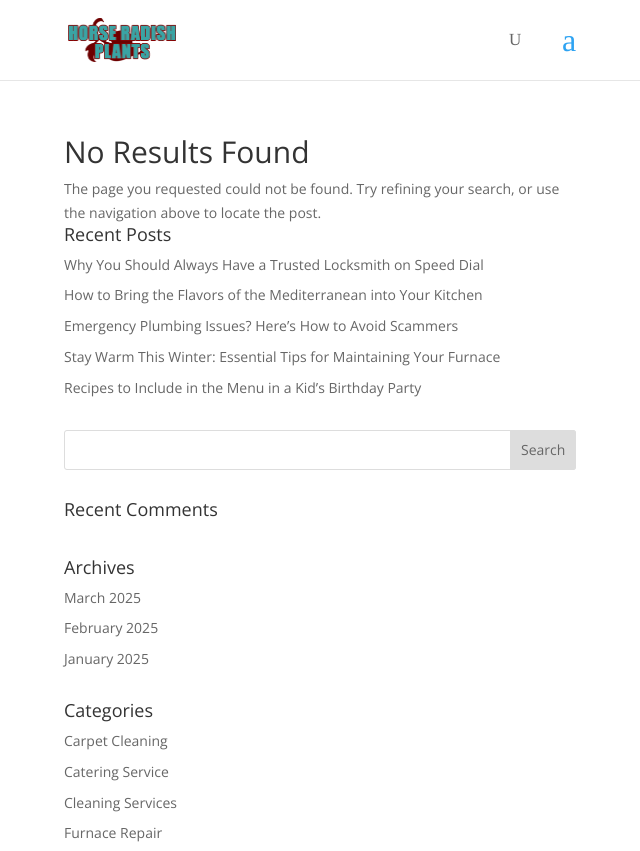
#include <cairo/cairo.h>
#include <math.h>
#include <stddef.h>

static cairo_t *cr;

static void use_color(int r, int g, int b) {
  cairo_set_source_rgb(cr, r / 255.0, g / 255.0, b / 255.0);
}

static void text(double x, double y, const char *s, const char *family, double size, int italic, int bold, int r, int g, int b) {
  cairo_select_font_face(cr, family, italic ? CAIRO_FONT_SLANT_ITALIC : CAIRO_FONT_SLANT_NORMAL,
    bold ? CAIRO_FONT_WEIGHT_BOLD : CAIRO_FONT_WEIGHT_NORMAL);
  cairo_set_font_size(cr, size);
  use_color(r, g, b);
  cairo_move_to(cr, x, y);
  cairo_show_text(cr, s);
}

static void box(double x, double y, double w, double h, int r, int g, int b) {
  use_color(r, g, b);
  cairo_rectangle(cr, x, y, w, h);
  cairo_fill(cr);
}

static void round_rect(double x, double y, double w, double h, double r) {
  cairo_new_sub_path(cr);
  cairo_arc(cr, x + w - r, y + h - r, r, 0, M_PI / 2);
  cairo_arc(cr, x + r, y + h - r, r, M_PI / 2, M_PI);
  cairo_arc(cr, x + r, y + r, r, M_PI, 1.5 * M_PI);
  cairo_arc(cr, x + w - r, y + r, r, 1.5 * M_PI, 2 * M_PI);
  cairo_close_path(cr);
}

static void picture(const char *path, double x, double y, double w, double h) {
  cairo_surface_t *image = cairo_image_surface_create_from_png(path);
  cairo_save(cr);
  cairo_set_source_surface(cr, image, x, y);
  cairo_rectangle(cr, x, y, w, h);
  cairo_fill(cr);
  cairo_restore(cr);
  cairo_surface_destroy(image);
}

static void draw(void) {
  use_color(255, 255, 255);
  cairo_paint(cr);
  box(0, 80, 640, 1, 230, 230, 230);
  picture("img_01.png", 68, 18, 108, 44);
  round_rect(64.5, 430.5, 511, 39, 2.5);
  use_color(221, 221, 221);
  cairo_set_line_width(cr, 1);
  cairo_stroke(cr);
  cairo_new_path(cr);
  cairo_move_to(cr, 510.5, 430.5);
  cairo_line_to(cr, 573, 430.5);
  cairo_curve_to(cr, 574.5, 430.5, 575.5, 431.5, 575.5, 433);
  cairo_line_to(cr, 575.5, 467);
  cairo_curve_to(cr, 575.5, 468.5, 574.5, 469.5, 573, 469.5);
  cairo_line_to(cr, 510.5, 469.5);
  cairo_close_path(cr);
  cairo_fill_preserve(cr);
  cairo_stroke(cr);
  text(509, 45, "U", "Liberation Serif", 17, 0, 0, 102, 102, 102);
  text(562, 51, "a", "Liberation Serif", 32, 0, 0, 46, 163, 242);
  text(64, 163, "No Results Found", "Open Sans", 30, 0, 0, 51, 51, 51);
  text(64, 194, "The page you requested could not be found. Try refining your search, or use", "Open Sans", 14, 0, 0, 102, 102, 102);
  text(64, 218, "the navigation above to locate the post.", "Open Sans", 14, 0, 0, 102, 102, 102);
  text(64, 241, "Recent Posts", "Open Sans", 18, 0, 0, 51, 51, 51);
  text(64, 270, "Why You Should Always Have a Trusted Locksmith on Speed Dial", "Open Sans", 14, 0, 0, 102, 102, 102);
  text(64, 300, "How to Bring the Flavors of the Mediterranean into Your Kitchen", "Open Sans", 14, 0, 0, 102, 102, 102);
  text(64, 331, "Emergency Plumbing Issues? Here’s How to Avoid Scammers", "Open Sans", 14, 0, 0, 102, 102, 102);
  text(64, 362, "Stay Warm This Winter: Essential Tips for Maintaining Your Furnace", "Open Sans", 14, 0, 0, 102, 102, 102);
  text(64, 393, "Recipes to Include in the Menu in a Kid’s Birthday Party", "Open Sans", 14, 0, 0, 102, 102, 102);
  text(521, 455, "Search", "Open Sans", 14, 0, 0, 102, 102, 102);
  text(64, 516, "Recent Comments", "Open Sans", 18, 0, 0, 51, 51, 51);
  text(64, 574, "Archives", "Open Sans", 18, 0, 0, 51, 51, 51);
  text(64, 603, "March 2025", "Open Sans", 14, 0, 0, 102, 102, 102);
  text(64, 633, "February 2025", "Open Sans", 14, 0, 0, 102, 102, 102);
  text(64, 664, "January 2025", "Open Sans", 14, 0, 0, 102, 102, 102);
  text(64, 717, "Categories", "Open Sans", 18, 0, 0, 51, 51, 51);
  text(64, 746, "Carpet Cleaning", "Open Sans", 14, 0, 0, 102, 102, 102);
  text(64, 777, "Catering Service", "Open Sans", 14, 0, 0, 102, 102, 102);
  text(64, 808, "Cleaning Services", "Open Sans", 14, 0, 0, 102, 102, 102);
  text(64, 838, "Furnace Repair", "Open Sans", 14, 0, 0, 102, 102, 102);
}

int main(void) {
  cairo_surface_t *surface = cairo_image_surface_create(CAIRO_FORMAT_RGB24, 640, 851);
  cr = cairo_create(surface);
  cairo_font_options_t *options = cairo_font_options_create();
  cairo_font_options_set_hint_metrics(options, CAIRO_HINT_METRICS_OFF);
  cairo_font_options_set_hint_style(options, CAIRO_HINT_STYLE_NONE);
  cairo_set_font_options(cr, options);
  cairo_set_miter_limit(cr, 4);
  draw();
  cairo_surface_write_to_png(surface, "out.png");
  cairo_font_options_destroy(options);
  cairo_destroy(cr);
  cairo_surface_destroy(surface);
  return 0;
}
